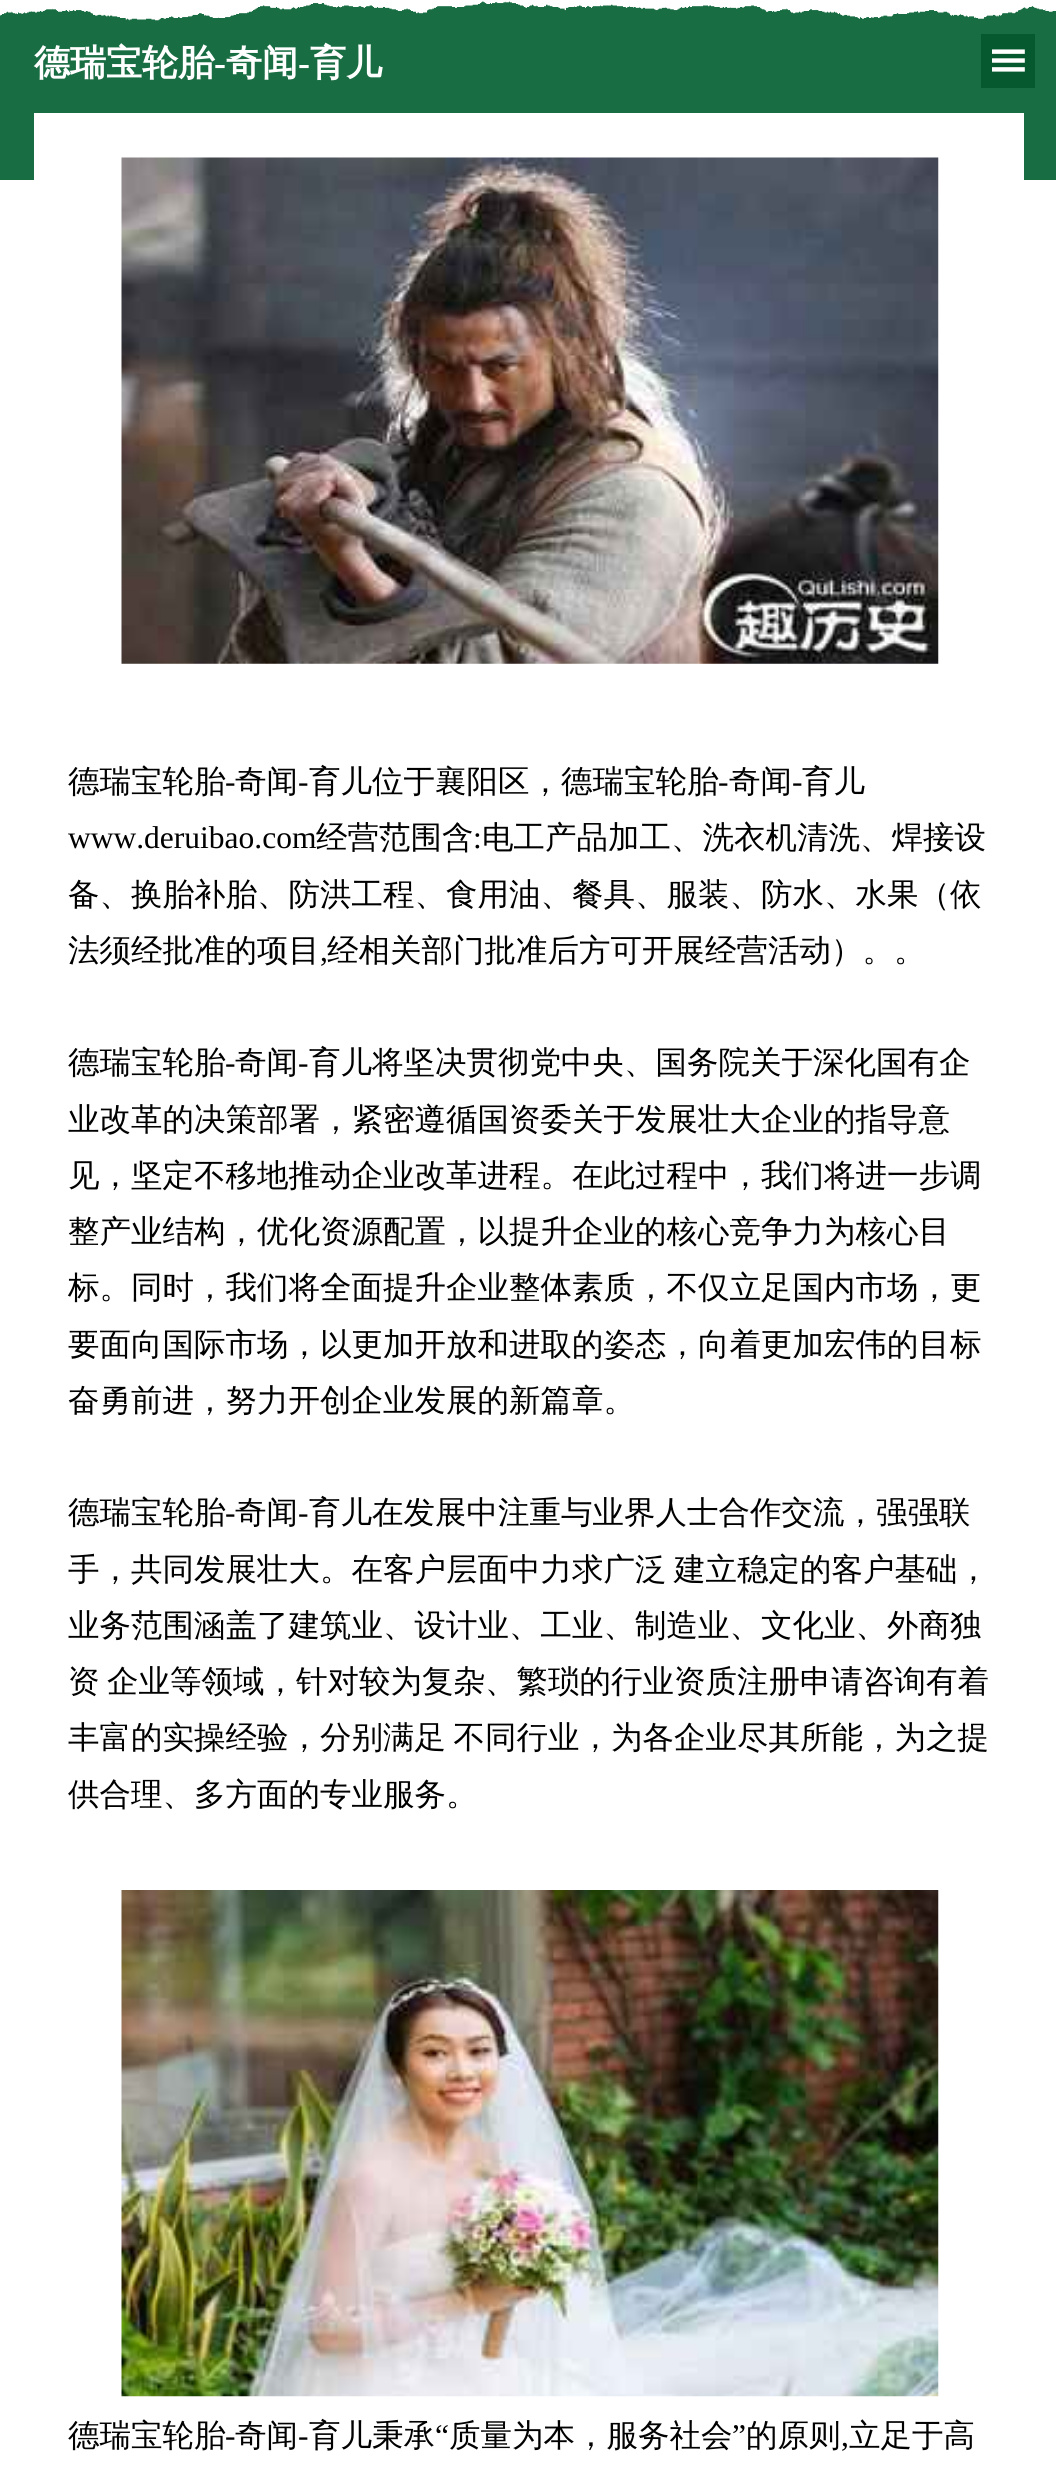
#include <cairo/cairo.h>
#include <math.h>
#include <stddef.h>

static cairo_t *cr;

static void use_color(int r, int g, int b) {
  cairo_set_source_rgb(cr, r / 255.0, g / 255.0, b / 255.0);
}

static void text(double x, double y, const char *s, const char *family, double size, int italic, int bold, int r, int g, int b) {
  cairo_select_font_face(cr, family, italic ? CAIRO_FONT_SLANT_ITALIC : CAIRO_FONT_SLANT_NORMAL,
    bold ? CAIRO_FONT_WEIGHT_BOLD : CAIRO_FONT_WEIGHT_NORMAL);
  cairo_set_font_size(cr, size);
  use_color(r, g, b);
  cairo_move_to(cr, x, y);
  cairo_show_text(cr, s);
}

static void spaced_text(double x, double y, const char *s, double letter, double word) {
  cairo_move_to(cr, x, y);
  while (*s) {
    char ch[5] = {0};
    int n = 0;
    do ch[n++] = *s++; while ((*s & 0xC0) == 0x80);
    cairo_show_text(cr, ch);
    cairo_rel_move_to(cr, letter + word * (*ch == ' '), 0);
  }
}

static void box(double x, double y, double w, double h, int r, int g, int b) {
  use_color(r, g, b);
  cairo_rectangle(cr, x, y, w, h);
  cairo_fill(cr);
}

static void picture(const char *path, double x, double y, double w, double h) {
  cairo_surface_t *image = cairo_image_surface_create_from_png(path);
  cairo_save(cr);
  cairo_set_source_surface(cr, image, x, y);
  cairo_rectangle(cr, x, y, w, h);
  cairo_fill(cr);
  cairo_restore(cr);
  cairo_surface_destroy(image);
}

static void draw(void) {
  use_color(255, 255, 255);
  cairo_paint(cr);
  box(0, 1, 1056, 179, 25, 109, 67);
  picture("img_01.png", 0, 0, 1056, 21);
  box(981, 34, 54, 54, 6, 88, 47);
  box(34, 113, 990, 67, 255, 255, 255);
  picture("img_02.png", 121, 157, 818, 507);
  picture("img_03.png", 121, 1890, 818, 507);
  text(34, 75, "德瑞宝轮胎", "WenQuanYi Zen Hei", 36, 0, 1, 255, 255, 255);
  text(214, 75, "-", "Liberation Serif", 36, 0, 1, 255, 255, 255);
  text(226, 75, "奇闻", "WenQuanYi Zen Hei", 36, 0, 1, 255, 255, 255);
  text(298, 75, "-", "Liberation Serif", 36, 0, 1, 255, 255, 255);
  text(310, 75, "育儿", "WenQuanYi Zen Hei", 36, 0, 1, 255, 255, 255);
  cairo_save(cr);
  cairo_translate(cr, 992, 45);
  cairo_rotate(cr, 90 * M_PI / 180);
  text(0, 0, "Ⅲ", "DejaVu Sans", 45, 0, 0, 255, 255, 255);
  cairo_restore(cr);
  text(68, 792, "德瑞宝轮胎", "WenQuanYi Zen Hei Medium", 31.5, 0, 0, 0, 0, 0);
  text(225, 792, "-", "Liberation Serif", 31.5, 0, 0, 0, 0, 0);
  text(235, 792, "奇闻", "WenQuanYi Zen Hei Medium", 31.5, 0, 0, 0, 0, 0);
  text(298, 792, "-", "Liberation Serif", 31.5, 0, 0, 0, 0, 0);
  text(309, 792, "育儿位于襄阳区，德瑞宝轮胎", "WenQuanYi Zen Hei Medium", 31.5, 0, 0, 0, 0, 0);
  text(718, 792, "-", "Liberation Serif", 31.5, 0, 0, 0, 0, 0);
  text(729, 792, "奇闻", "WenQuanYi Zen Hei Medium", 31.5, 0, 0, 0, 0, 0);
  text(792, 792, "-", "Liberation Serif", 31.5, 0, 0, 0, 0, 0);
  text(802, 792, "育儿", "WenQuanYi Zen Hei Medium", 31.5, 0, 0, 0, 0, 0);
  text(68, 848, "www.deruibao.com", "Liberation Serif", 31.5, 0, 0, 0, 0, 0);
  text(316, 848, "经营范围含", "WenQuanYi Zen Hei Medium", 31.5, 0, 0, 0, 0, 0);
  text(473, 848, ":", "Liberation Serif", 31.5, 0, 0, 0, 0, 0);
  text(482, 848, "电工产品加工、洗衣机清洗、焊接设", "WenQuanYi Zen Hei Medium", 31.5, 0, 0, 0, 0, 0);
  text(68, 905, "备、换胎补胎、防洪工程、食用油、餐具、服装、防水、水果（依", "WenQuanYi Zen Hei Medium", 31.5, 0, 0, 0, 0, 0);
  text(68, 961, "法须经批准的项目", "WenQuanYi Zen Hei Medium", 31.5, 0, 0, 0, 0, 0);
  text(320, 961, ",", "Liberation Serif", 31.5, 0, 0, 0, 0, 0);
  text(327, 961, "经相关部门批准后方可开展经营活动）。。", "WenQuanYi Zen Hei Medium", 31.5, 0, 0, 0, 0, 0);
  text(68, 1073, "德瑞宝轮胎", "WenQuanYi Zen Hei Medium", 31.5, 0, 0, 0, 0, 0);
  text(225, 1073, "-", "Liberation Serif", 31.5, 0, 0, 0, 0, 0);
  text(235, 1073, "奇闻", "WenQuanYi Zen Hei Medium", 31.5, 0, 0, 0, 0, 0);
  text(298, 1073, "-", "Liberation Serif", 31.5, 0, 0, 0, 0, 0);
  text(309, 1073, "育儿将坚决贯彻党中央、国务院关于深化国有企", "WenQuanYi Zen Hei Medium", 31.5, 0, 0, 0, 0, 0);
  text(68, 1130, "业改革的决策部署，紧密遵循国资委关于发展壮大企业的指导意", "WenQuanYi Zen Hei Medium", 31.5, 0, 0, 0, 0, 0);
  text(68, 1186, "见，坚定不移地推动企业改革进程。在此过程中，我们将进一步调", "WenQuanYi Zen Hei Medium", 31.5, 0, 0, 0, 0, 0);
  text(68, 1242, "整产业结构，优化资源配置，以提升企业的核心竞争力为核心目", "WenQuanYi Zen Hei Medium", 31.5, 0, 0, 0, 0, 0);
  text(68, 1298, "标。同时，我们将全面提升企业整体素质，不仅立足国内市场，更", "WenQuanYi Zen Hei Medium", 31.5, 0, 0, 0, 0, 0);
  text(68, 1355, "要面向国际市场，以更加开放和进取的姿态，向着更加宏伟的目标", "WenQuanYi Zen Hei Medium", 31.5, 0, 0, 0, 0, 0);
  text(68, 1411, "奋勇前进，努力开创企业发展的新篇章。", "WenQuanYi Zen Hei Medium", 31.5, 0, 0, 0, 0, 0);
  text(68, 1523, "德瑞宝轮胎", "WenQuanYi Zen Hei Medium", 31.5, 0, 0, 0, 0, 0);
  text(225, 1523, "-", "Liberation Serif", 31.5, 0, 0, 0, 0, 0);
  text(235, 1523, "奇闻", "WenQuanYi Zen Hei Medium", 31.5, 0, 0, 0, 0, 0);
  text(298, 1523, "-", "Liberation Serif", 31.5, 0, 0, 0, 0, 0);
  text(309, 1523, "育儿在发展中注重与业界人士合作交流，强强联", "WenQuanYi Zen Hei Medium", 31.5, 0, 0, 0, 0, 0);
  spaced_text(68, 1580, "手，共同发展壮大。在客户层面中力求广泛 建立稳定的客户基础，", 0, -2);
  text(68, 1636, "业务范围涵盖了建筑业、设计业、工业、制造业、文化业、外商独", "WenQuanYi Zen Hei Medium", 31.5, 0, 0, 0, 0, 0);
  spaced_text(68, 1692, "资 企业等领域，针对较为复杂、繁琐的行业资质注册申请咨询有着", 0, -2);
  spaced_text(68, 1748, "丰富的实操经验，分别满足 不同行业，为各企业尽其所能，为之提", 0, -2);
  text(68, 1805, "供合理、多方面的专业服务。", "WenQuanYi Zen Hei Medium", 31.5, 0, 0, 0, 0, 0);
  text(68, 2446, "德瑞宝轮胎", "WenQuanYi Zen Hei Medium", 31.5, 0, 0, 0, 0, 0);
  text(235, 2446, "奇闻", "WenQuanYi Zen Hei Medium", 31.5, 0, 0, 0, 0, 0);
  text(309, 2446, "育儿秉承", "WenQuanYi Zen Hei Medium", 31.5, 0, 0, 0, 0, 0);
  text(435, 2446, "“", "Liberation Serif", 31.5, 0, 0, 0, 0, 0);
  text(449, 2446, "质量为本，服务社会", "WenQuanYi Zen Hei Medium", 31.5, 0, 0, 0, 0, 0);
  text(732, 2446, "”", "Liberation Serif", 31.5, 0, 0, 0, 0, 0);
  text(746, 2446, "的原则", "WenQuanYi Zen Hei Medium", 31.5, 0, 0, 0, 0, 0);
  text(849, 2446, "立足于高", "WenQuanYi Zen Hei Medium", 31.5, 0, 0, 0, 0, 0);
  text(225, 2446, "-", "Liberation Serif", 31.5, 0, 0, 0, 0, 0);
  text(298, 2446, "-", "Liberation Serif", 31.5, 0, 0, 0, 0, 0);
  text(841, 2446, ",", "Liberation Serif", 31.5, 0, 0, 0, 0, 0);
}

int main(void) {
  cairo_surface_t *surface = cairo_image_surface_create(CAIRO_FORMAT_RGB24, 1056, 2480);
  cr = cairo_create(surface);
  cairo_font_options_t *options = cairo_font_options_create();
  cairo_font_options_set_hint_metrics(options, CAIRO_HINT_METRICS_OFF);
  cairo_font_options_set_hint_style(options, CAIRO_HINT_STYLE_NONE);
  cairo_set_font_options(cr, options);
  cairo_set_miter_limit(cr, 4);
  draw();
  cairo_surface_write_to_png(surface, "out.png");
  cairo_font_options_destroy(options);
  cairo_destroy(cr);
  cairo_surface_destroy(surface);
  return 0;
}
